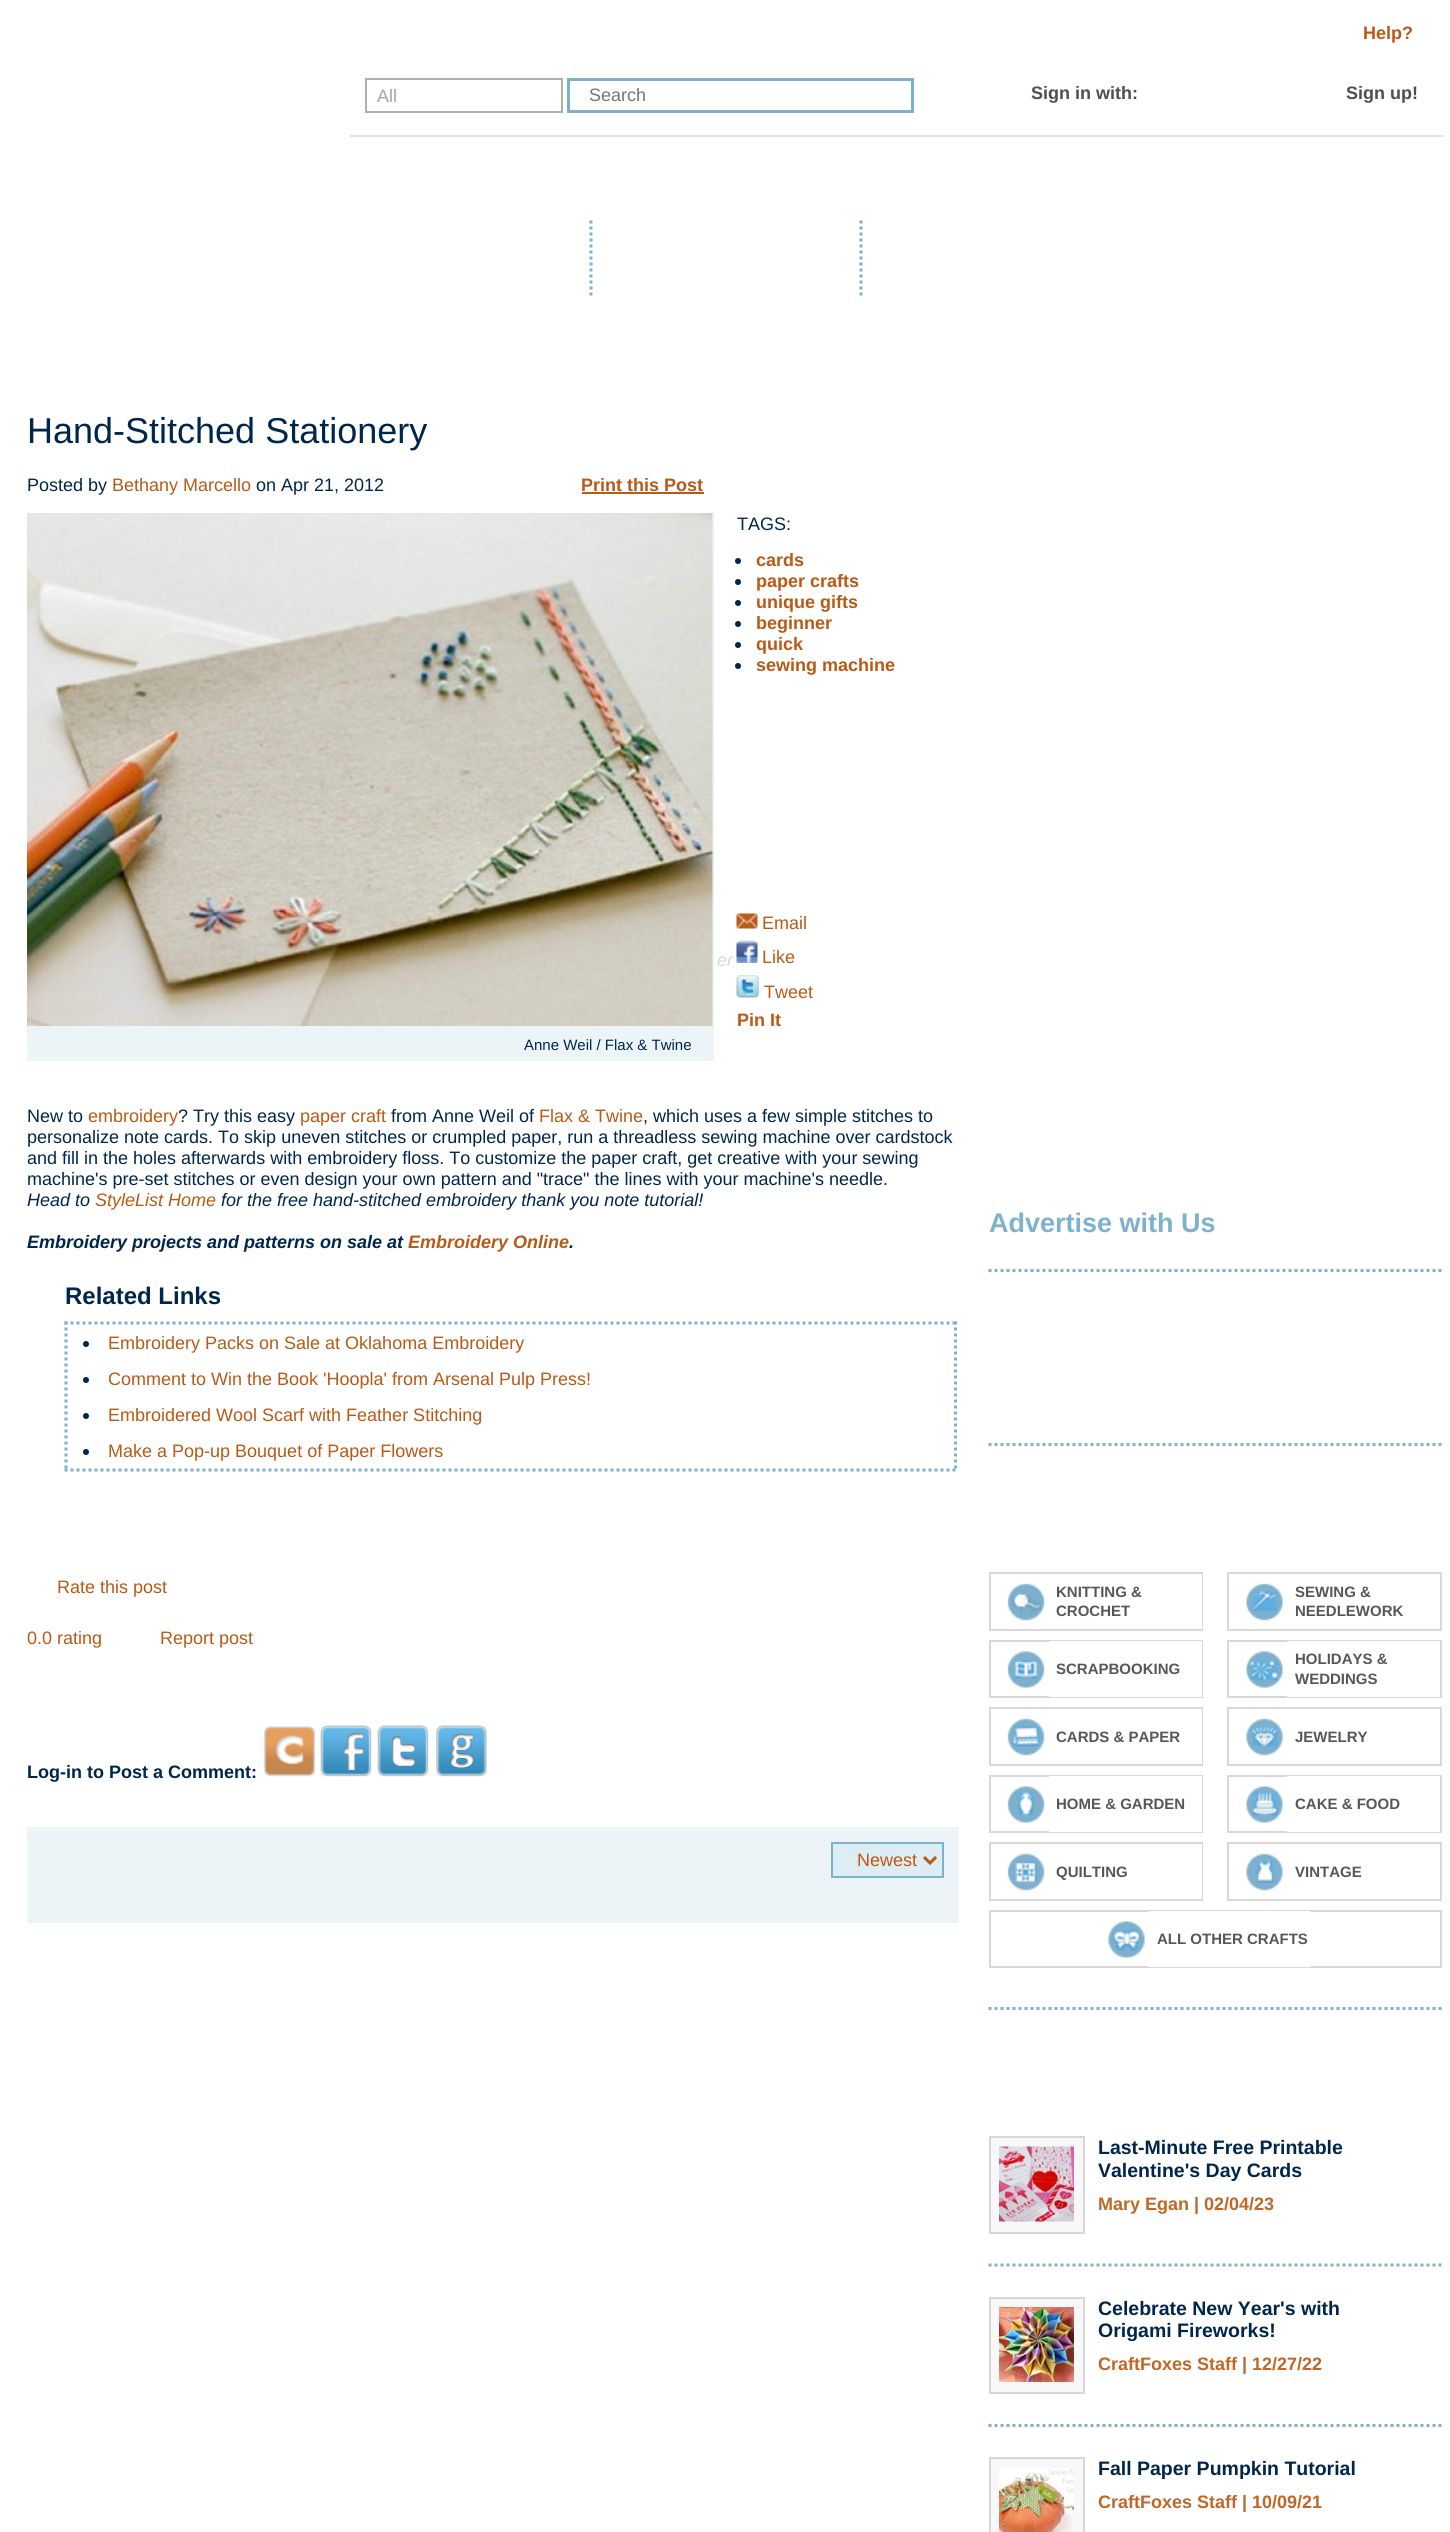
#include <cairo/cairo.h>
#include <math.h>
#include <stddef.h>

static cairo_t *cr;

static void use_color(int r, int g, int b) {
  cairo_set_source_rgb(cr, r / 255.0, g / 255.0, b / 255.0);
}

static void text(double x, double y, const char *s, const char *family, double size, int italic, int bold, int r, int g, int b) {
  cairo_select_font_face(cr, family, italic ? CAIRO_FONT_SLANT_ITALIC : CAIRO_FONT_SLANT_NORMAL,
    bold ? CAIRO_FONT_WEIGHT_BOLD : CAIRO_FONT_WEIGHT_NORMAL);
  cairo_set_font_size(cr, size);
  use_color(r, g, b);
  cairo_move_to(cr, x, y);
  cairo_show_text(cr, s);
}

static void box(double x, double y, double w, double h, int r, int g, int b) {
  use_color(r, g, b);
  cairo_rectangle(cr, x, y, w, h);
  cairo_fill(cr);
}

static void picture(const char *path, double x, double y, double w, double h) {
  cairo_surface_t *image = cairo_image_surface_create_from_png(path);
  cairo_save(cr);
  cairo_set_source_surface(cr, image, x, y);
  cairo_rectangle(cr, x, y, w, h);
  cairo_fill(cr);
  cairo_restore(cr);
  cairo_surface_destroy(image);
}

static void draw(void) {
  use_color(255, 255, 255);
  cairo_paint(cr);
  box(350, 135, 1093, 2, 226, 226, 226);
  cairo_rectangle(cr, 366, 79, 196, 33);
  use_color(175, 175, 175);
  cairo_stroke(cr);
  cairo_rectangle(cr, 568.5, 79.5, 344, 32);
  use_color(126, 176, 205);
  cairo_set_line_width(cr, 3);
  cairo_stroke(cr);
  cairo_new_path(cr);
  cairo_move_to(cr, 591, 220.5);
  cairo_line_to(cr, 591, 295.5);
  use_color(125, 178, 206);
  cairo_set_dash(cr, (double[]){3, 3}, 2, 0);
  cairo_stroke(cr);
  cairo_new_path(cr);
  cairo_move_to(cr, 861, 220.5);
  cairo_line_to(cr, 861, 295.5);
  cairo_stroke(cr);
  box(582, 492, 122, 2, 186, 89, 21);
  box(27, 513, 687, 548, 236, 244, 248);
  picture("img_01.png", 27, 513, 686, 513);
  use_color(0, 38, 76);
  cairo_arc(cr, 738, 561, 3, 0, 2 * M_PI);
  cairo_fill(cr);
  cairo_arc(cr, 738, 582, 3, 0, 2 * M_PI);
  cairo_fill(cr);
  cairo_arc(cr, 738, 603, 3, 0, 2 * M_PI);
  cairo_fill(cr);
  cairo_arc(cr, 738, 624, 3, 0, 2 * M_PI);
  cairo_fill(cr);
  cairo_arc(cr, 738, 645, 3, 0, 2 * M_PI);
  cairo_fill(cr);
  cairo_arc(cr, 738, 666, 3, 0, 2 * M_PI);
  cairo_fill(cr);
  picture("img_02.png", 736, 913, 22, 16);
  picture("img_03.png", 736, 940, 22, 23);
  picture("img_04.png", 736, 975, 23, 23);
  cairo_new_path(cr);
  cairo_move_to(cr, 64.5, 1323);
  cairo_line_to(cr, 957, 1323);
  use_color(125, 178, 206);
  cairo_stroke(cr);
  cairo_new_path(cr);
  cairo_move_to(cr, 955.5, 1321.5);
  cairo_line_to(cr, 955.5, 1471.5);
  cairo_stroke(cr);
  cairo_new_path(cr);
  cairo_move_to(cr, 64.5, 1470);
  cairo_line_to(cr, 957, 1470);
  cairo_stroke(cr);
  cairo_new_path(cr);
  cairo_move_to(cr, 66, 1321.5);
  cairo_line_to(cr, 66, 1471.5);
  cairo_stroke(cr);
  use_color(0, 38, 76);
  cairo_arc(cr, 86, 1344, 3, 0, 2 * M_PI);
  cairo_fill(cr);
  cairo_arc(cr, 86, 1380, 3, 0, 2 * M_PI);
  cairo_fill(cr);
  cairo_arc(cr, 86, 1416, 3, 0, 2 * M_PI);
  cairo_fill(cr);
  cairo_arc(cr, 86, 1452, 3, 0, 2 * M_PI);
  cairo_fill(cr);
  picture("img_05.png", 263, 1726, 52, 51);
  picture("img_06.png", 320, 1725, 52, 52);
  picture("img_07.png", 377, 1725, 52, 52);
  picture("img_08.png", 436, 1725, 51, 52);
  box(27, 1827, 932, 96, 236, 244, 248);
  use_color(222, 236, 243);
  cairo_rectangle(cr, 832, 1843, 111, 34);
  cairo_fill_preserve(cr);
  use_color(125, 178, 206);
  cairo_set_line_width(cr, 2);
  cairo_set_dash(cr, NULL, 0, 0);
  cairo_stroke(cr);
  cairo_new_path(cr);
  cairo_move_to(cr, 924, 1857);
  cairo_line_to(cr, 930, 1863);
  cairo_line_to(cr, 936, 1857);
  use_color(186, 89, 21);
  cairo_set_line_width(cr, 3);
  cairo_stroke(cr);
  cairo_new_path(cr);
  cairo_move_to(cr, 988.5, 1270.5);
  cairo_line_to(cr, 1443, 1270.5);
  use_color(125, 178, 206);
  cairo_set_dash(cr, (double[]){3, 3}, 2, 0);
  cairo_stroke(cr);
  cairo_new_path(cr);
  cairo_move_to(cr, 988.5, 1444.5);
  cairo_line_to(cr, 1443, 1444.5);
  cairo_stroke(cr);
  picture("img_09.png", 1007, 1583, 38, 38);
  cairo_rectangle(cr, 990, 1573, 212, 57);
  use_color(216, 216, 216);
  cairo_set_line_width(cr, 2);
  cairo_set_dash(cr, NULL, 0, 0);
  cairo_stroke(cr);
  box(1201, 1574, 1, 55, 255, 255, 255);
  picture("img_10.png", 1246, 1583, 37, 38);
  cairo_rectangle(cr, 1228, 1573, 213, 57);
  use_color(216, 216, 216);
  cairo_stroke(cr);
  picture("img_11.png", 1007, 1651, 38, 37);
  cairo_rectangle(cr, 990, 1641, 212, 56);
  cairo_stroke(cr);
  box(1049, 1641, 153, 56, 255, 255, 255);
  picture("img_12.png", 1246, 1651, 37, 37);
  cairo_rectangle(cr, 1228, 1641, 213, 56);
  use_color(216, 216, 216);
  cairo_stroke(cr);
  box(1287, 1641, 153, 56, 255, 255, 255);
  picture("img_13.png", 1007, 1718, 38, 38);
  cairo_rectangle(cr, 990, 1708, 212, 57);
  use_color(216, 216, 216);
  cairo_stroke(cr);
  box(1201, 1709, 1, 55, 255, 255, 255);
  picture("img_14.png", 1246, 1718, 37, 38);
  cairo_rectangle(cr, 1228, 1708, 213, 57);
  use_color(216, 216, 216);
  cairo_stroke(cr);
  picture("img_15.png", 1007, 1786, 38, 37);
  cairo_rectangle(cr, 990, 1776, 212, 56);
  cairo_stroke(cr);
  box(1049, 1776, 153, 56, 255, 255, 255);
  picture("img_16.png", 1246, 1786, 37, 37);
  cairo_rectangle(cr, 1228, 1776, 213, 56);
  use_color(216, 216, 216);
  cairo_stroke(cr);
  box(1287, 1776, 153, 56, 255, 255, 255);
  picture("img_17.png", 1007, 1853, 38, 38);
  cairo_rectangle(cr, 990, 1843, 212, 57);
  use_color(216, 216, 216);
  cairo_stroke(cr);
  box(1201, 1844, 1, 55, 255, 255, 255);
  picture("img_18.png", 1246, 1853, 37, 38);
  cairo_rectangle(cr, 1228, 1843, 213, 57);
  use_color(216, 216, 216);
  cairo_stroke(cr);
  picture("img_19.png", 1108, 1921, 37, 37);
  cairo_rectangle(cr, 990, 1911, 451, 56);
  cairo_stroke(cr);
  box(1149, 1911, 161, 56, 255, 255, 255);
  cairo_new_path(cr);
  cairo_move_to(cr, 988.5, 2008.5);
  cairo_line_to(cr, 1443, 2008.5);
  use_color(125, 178, 206);
  cairo_set_line_width(cr, 3);
  cairo_set_dash(cr, (double[]){3, 3}, 2, 0);
  cairo_stroke(cr);
  use_color(248, 248, 248);
  cairo_rectangle(cr, 990, 2137, 94, 96);
  cairo_fill_preserve(cr);
  use_color(215, 215, 215);
  cairo_set_line_width(cr, 2);
  cairo_set_dash(cr, NULL, 0, 0);
  cairo_stroke(cr);
  picture("img_20.png", 999, 2146, 75, 76);
  cairo_new_path(cr);
  cairo_move_to(cr, 988.5, 2265);
  cairo_line_to(cr, 1443, 2265);
  use_color(125, 178, 206);
  cairo_set_line_width(cr, 3);
  cairo_set_dash(cr, (double[]){3, 3}, 2, 0);
  cairo_stroke(cr);
  use_color(248, 248, 248);
  cairo_rectangle(cr, 990, 2298, 94, 95);
  cairo_fill_preserve(cr);
  use_color(215, 215, 215);
  cairo_set_line_width(cr, 2);
  cairo_set_dash(cr, NULL, 0, 0);
  cairo_stroke(cr);
  picture("img_21.png", 999, 2307, 75, 75);
  cairo_new_path(cr);
  cairo_move_to(cr, 988.5, 2425.5);
  cairo_line_to(cr, 1443, 2425.5);
  use_color(125, 178, 206);
  cairo_set_line_width(cr, 3);
  cairo_set_dash(cr, (double[]){3, 3}, 2, 0);
  cairo_stroke(cr);
  use_color(248, 248, 248);
  cairo_rectangle(cr, 990, 2458, 94, 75);
  cairo_fill_preserve(cr);
  use_color(215, 215, 215);
  cairo_set_line_width(cr, 2);
  cairo_set_dash(cr, NULL, 0, 0);
  cairo_stroke(cr);
  picture("img_22.png", 999, 2468, 75, 64);
  text(1363, 39, "Help?", "Liberation Sans", 18, 0, 1, 186, 89, 21);
  text(377, 102, "All", "Liberation Sans", 18, 0, 0, 163, 163, 163);
  text(589, 101, "Search", "Liberation Sans", 18, 0, 0, 117, 117, 117);
  text(1031, 99, "Sign in with:", "Liberation Sans", 18, 0, 1, 78, 78, 78);
  text(1346, 99, "Sign up!", "Liberation Sans", 18, 0, 1, 78, 78, 78);
  text(27, 443, "Hand-Stitched Stationery", "Liberation Sans", 36, 0, 0, 0, 38, 76);
  text(27, 491, "Posted by", "Liberation Sans", 18, 0, 0, 0, 38, 76);
  text(112, 491, "Bethany Marcello", "Liberation Sans", 18, 0, 0, 186, 89, 21);
  text(256, 491, "on Apr 21, 2012", "Liberation Sans", 18, 0, 0, 0, 38, 76);
  text(581, 491, "Print this Post", "Liberation Sans", 18, 0, 1, 186, 89, 21);
  text(717, 966, "er", "Liberation Sans", 18, 1, 0, 219, 216, 207);
  text(524, 1050, "Anne Weil / Flax & Twine", "Liberation Sans", 15, 0, 0, 0, 38, 76);
  text(737, 530, "TAGS:", "Liberation Sans", 18, 0, 0, 0, 38, 76);
  text(756, 566, "cards", "Liberation Sans", 18, 0, 1, 186, 89, 21);
  text(756, 587, "paper crafts", "Liberation Sans", 18, 0, 1, 186, 89, 21);
  text(756, 608, "unique gifts", "Liberation Sans", 18, 0, 1, 186, 89, 21);
  text(756, 629, "beginner", "Liberation Sans", 18, 0, 1, 186, 89, 21);
  text(756, 650, "quick", "Liberation Sans", 18, 0, 1, 186, 89, 21);
  text(756, 671, "sewing machine", "Liberation Sans", 18, 0, 1, 186, 89, 21);
  text(762, 929, "Email", "Liberation Sans", 18, 0, 0, 186, 89, 21);
  text(762, 963, "Like", "Liberation Sans", 18, 0, 0, 186, 89, 21);
  text(764, 998, "Tweet", "Liberation Sans", 18, 0, 0, 186, 89, 21);
  text(737, 1026, "Pin It", "Liberation Sans", 18, 0, 1, 186, 89, 21);
  text(27, 1122, "New to", "Liberation Sans", 18, 0, 0, 0, 38, 76);
  text(88, 1122, "embroidery", "Liberation Sans", 18, 0, 0, 186, 89, 21);
  text(178, 1122, "? Try this easy", "Liberation Sans", 18, 0, 0, 0, 38, 76);
  text(300, 1122, "paper craft", "Liberation Sans", 18, 0, 0, 186, 89, 21);
  text(391, 1122, "from Anne Weil of", "Liberation Sans", 18, 0, 0, 0, 38, 76);
  text(539, 1122, "Flax & Twine", "Liberation Sans", 18, 0, 0, 186, 89, 21);
  text(643, 1122, ", which uses a few simple stitches to", "Liberation Sans", 18, 0, 0, 0, 38, 76);
  text(27, 1143, "personalize note cards. To skip uneven stitches or crumpled paper, run a threadless sewing machine over cardstock", "Liberation Sans", 18, 0, 0, 0, 38, 76);
  text(27, 1164, "and fill in the holes afterwards with embroidery floss. To customize the paper craft, get creative with your sewing", "Liberation Sans", 18, 0, 0, 0, 38, 76);
  text(27, 1185, "machine's pre-set stitches or even design your own pattern and \"trace\" the lines with your machine's needle.", "Liberation Sans", 18, 0, 0, 0, 38, 76);
  text(27, 1206, "Head to", "Liberation Sans", 18, 1, 0, 0, 38, 76);
  text(95, 1206, "StyleList Home", "Liberation Sans", 18, 1, 0, 186, 89, 21);
  text(221, 1206, "for the free hand-stitched embroidery thank you note tutorial!", "Liberation Sans", 18, 1, 0, 0, 38, 76);
  text(27, 1248, "Embroidery projects and patterns on sale at", "Liberation Sans", 18, 1, 1, 0, 38, 76);
  text(408, 1248, "Embroidery Online", "Liberation Sans", 18, 1, 1, 186, 89, 21);
  text(569, 1248, ".", "Liberation Sans", 18, 1, 1, 0, 38, 76);
  text(65, 1304, "Related Links", "Liberation Sans", 24, 0, 1, 0, 38, 76);
  text(108, 1349, "Embroidery Packs on Sale at Oklahoma Embroidery", "Liberation Sans", 18, 0, 0, 186, 89, 21);
  text(108, 1385, "Comment to Win the Book 'Hoopla' from Arsenal Pulp Press!", "Liberation Sans", 18, 0, 0, 186, 89, 21);
  text(108, 1421, "Embroidered Wool Scarf with Feather Stitching", "Liberation Sans", 18, 0, 0, 186, 89, 21);
  text(108, 1457, "Make a Pop-up Bouquet of Paper Flowers", "Liberation Sans", 18, 0, 0, 186, 89, 21);
  text(57, 1593, "Rate this post", "Liberation Sans", 18, 0, 0, 186, 89, 21);
  text(27, 1644, "0.0 rating", "Liberation Sans", 18, 0, 0, 186, 89, 21);
  text(160, 1644, "Report post", "Liberation Sans", 18, 0, 0, 186, 89, 21);
  text(27, 1778, "Log-in to Post a Comment:", "Liberation Sans", 18, 0, 1, 0, 38, 76);
  text(857, 1866, "Newest", "Liberation Sans", 18, 0, 0, 186, 89, 21);
  text(989, 1232, "Advertise with Us", "Liberation Sans", 27, 0, 1, 125, 178, 206);
  text(1056, 1597, "KNITTING &", "Liberation Sans", 15, 0, 1, 87, 87, 87);
  text(1056, 1616, "CROCHET", "Liberation Sans", 15, 0, 1, 87, 87, 87);
  text(1295, 1597, "SEWING &", "Liberation Sans", 15, 0, 1, 87, 87, 87);
  text(1295, 1616, "NEEDLEWORK", "Liberation Sans", 15, 0, 1, 87, 87, 87);
  text(1056, 1674, "SCRAPBOOKING", "Liberation Sans", 15, 0, 1, 87, 87, 87);
  text(1295, 1664, "HOLIDAYS &", "Liberation Sans", 15, 0, 1, 87, 87, 87);
  text(1295, 1684, "WEDDINGS", "Liberation Sans", 15, 0, 1, 87, 87, 87);
  text(1056, 1742, "CARDS & PAPER", "Liberation Sans", 15, 0, 1, 87, 87, 87);
  text(1295, 1742, "JEWELRY", "Liberation Sans", 15, 0, 1, 87, 87, 87);
  text(1056, 1809, "HOME & GARDEN", "Liberation Sans", 15, 0, 1, 87, 87, 87);
  text(1295, 1809, "CAKE & FOOD", "Liberation Sans", 15, 0, 1, 87, 87, 87);
  text(1056, 1877, "QUILTING", "Liberation Sans", 15, 0, 1, 87, 87, 87);
  text(1295, 1877, "VINTAGE", "Liberation Sans", 15, 0, 1, 87, 87, 87);
  text(1157, 1944, "ALL OTHER CRAFTS", "Liberation Sans", 15, 0, 1, 87, 87, 87);
  text(1098, 2154, "Last-Minute Free Printable", "Liberation Sans", 19.5, 0, 1, 0, 38, 76);
  text(1098, 2177, "Valentine's Day Cards", "Liberation Sans", 19.5, 0, 1, 0, 38, 76);
  text(1098, 2210, "Mary Egan | 02/04/23", "Liberation Sans", 18, 0, 1, 192, 103, 40);
  text(1098, 2315, "Celebrate New Year's with", "Liberation Sans", 19.5, 0, 1, 0, 38, 76);
  text(1098, 2337, "Origami Fireworks!", "Liberation Sans", 19.5, 0, 1, 0, 38, 76);
  text(1098, 2370, "CraftFoxes Staff | 12/27/22", "Liberation Sans", 18, 0, 1, 192, 103, 40);
  text(1098, 2475, "Fall Paper Pumpkin Tutorial", "Liberation Sans", 19.5, 0, 1, 0, 38, 76);
  text(1098, 2508, "CraftFoxes Staff | 10/09/21", "Liberation Sans", 18, 0, 1, 192, 103, 40);
}

int main(void) {
  cairo_surface_t *surface = cairo_image_surface_create(CAIRO_FORMAT_RGB24, 1450, 2532);
  cr = cairo_create(surface);
  cairo_font_options_t *options = cairo_font_options_create();
  cairo_font_options_set_hint_metrics(options, CAIRO_HINT_METRICS_OFF);
  cairo_font_options_set_hint_style(options, CAIRO_HINT_STYLE_NONE);
  cairo_set_font_options(cr, options);
  cairo_set_miter_limit(cr, 4);
  draw();
  cairo_surface_write_to_png(surface, "out.png");
  cairo_font_options_destroy(options);
  cairo_destroy(cr);
  cairo_surface_destroy(surface);
  return 0;
}
